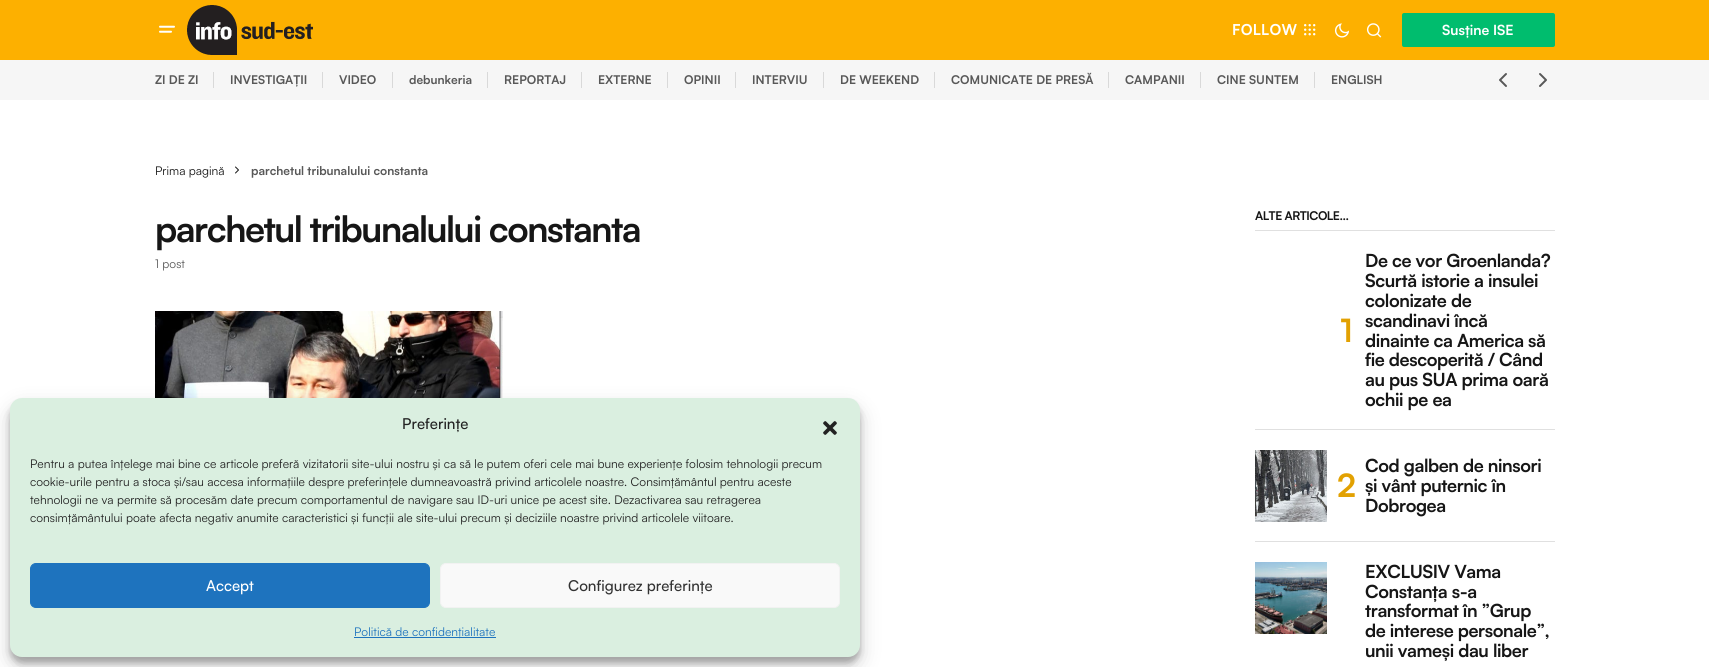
#include <cairo/cairo.h>
#include <math.h>
#include <stddef.h>

static cairo_t *cr;

static void use_color(int r, int g, int b) {
  cairo_set_source_rgb(cr, r / 255.0, g / 255.0, b / 255.0);
}

static void text(double x, double y, const char *s, const char *family, double size, int italic, int bold, int r, int g, int b) {
  cairo_select_font_face(cr, family, italic ? CAIRO_FONT_SLANT_ITALIC : CAIRO_FONT_SLANT_NORMAL,
    bold ? CAIRO_FONT_WEIGHT_BOLD : CAIRO_FONT_WEIGHT_NORMAL);
  cairo_set_font_size(cr, size);
  use_color(r, g, b);
  cairo_move_to(cr, x, y);
  cairo_show_text(cr, s);
}

static void spaced_text(double x, double y, const char *s, double letter, double word) {
  cairo_move_to(cr, x, y);
  while (*s) {
    char ch[5] = {0};
    int n = 0;
    do ch[n++] = *s++; while ((*s & 0xC0) == 0x80);
    cairo_show_text(cr, ch);
    cairo_rel_move_to(cr, letter + word * (*ch == ' '), 0);
  }
}

static void box(double x, double y, double w, double h, int r, int g, int b) {
  use_color(r, g, b);
  cairo_rectangle(cr, x, y, w, h);
  cairo_fill(cr);
}

static void round_rect(double x, double y, double w, double h, double r) {
  cairo_new_sub_path(cr);
  cairo_arc(cr, x + w - r, y + h - r, r, 0, M_PI / 2);
  cairo_arc(cr, x + r, y + h - r, r, M_PI / 2, M_PI);
  cairo_arc(cr, x + r, y + r, r, M_PI, 1.5 * M_PI);
  cairo_arc(cr, x + w - r, y + r, r, 1.5 * M_PI, 2 * M_PI);
  cairo_close_path(cr);
}

static void shadow(double x, double y, double w, double h, double r, double blur, double alpha) {
  cairo_push_group_with_content(cr, CAIRO_CONTENT_ALPHA);
  cairo_set_operator(cr, CAIRO_OPERATOR_SOURCE);
  for (int i = 15; i >= -15 && fmin(w, h) + blur * i / 3 > 0; i -= 2) {
    double e = blur * i / 6;
    cairo_set_source_rgba(cr, 0, 0, 0, alpha * erfc((i - 1) / 8.5) / 2);
    round_rect(x - e, y - e, w + 2 * e, h + 2 * e, fmax(0, fmin(r + e + blur * .6, fmin(w, h) / 2 + e)));
    cairo_fill(cr);
  }
  cairo_pattern_t *soft = cairo_pop_group(cr);
  cairo_mask(cr, soft);
  cairo_pattern_destroy(soft);
}

static void picture(const char *path, double x, double y, double w, double h) {
  cairo_surface_t *image = cairo_image_surface_create_from_png(path);
  cairo_save(cr);
  cairo_set_source_surface(cr, image, x, y);
  cairo_rectangle(cr, x, y, w, h);
  cairo_fill(cr);
  cairo_restore(cr);
  cairo_surface_destroy(image);
}

static void draw(void) {
  use_color(255, 255, 255);
  cairo_paint(cr);
  box(0, 0, 1709, 60, 253, 176, 0);
  picture("img_01.png", 159, 25, 16, 8);
  picture("img_02.png", 187, 5, 126, 50);
  picture("img_03.png", 1304, 24, 12, 12);
  picture("img_04.png", 1334, 23, 16, 15);
  picture("img_05.png", 1366, 23, 16, 15);
  use_color(0, 189, 110);
  round_rect(1402, 13, 153, 34, 2);
  cairo_fill(cr);
  box(0, 60, 1709, 40, 246, 246, 246);
  box(213, 72, 1, 16, 217, 217, 217);
  box(322, 72, 1, 16, 217, 217, 217);
  box(392, 72, 1, 16, 217, 217, 217);
  box(487, 72, 1, 16, 217, 217, 217);
  box(581, 72, 1, 16, 217, 217, 217);
  box(667, 72, 1, 16, 217, 217, 217);
  box(735, 72, 1, 16, 217, 217, 217);
  box(823, 72, 1, 16, 217, 217, 217);
  box(934, 72, 1, 16, 217, 217, 217);
  box(1108, 72, 1, 16, 217, 217, 217);
  box(1200, 72, 1, 16, 217, 217, 217);
  box(1314, 72, 1, 16, 217, 217, 217);
  picture("img_06.png", 1499, 73, 8, 14);
  picture("img_07.png", 1539, 73, 8, 14);
  picture("img_08.png", 235, 166, 4, 8);
  picture("img_09.png", 155, 311, 348, 87);
  box(1255, 230, 300, 1, 224, 224, 224);
  box(1255, 429, 300, 1, 224, 224, 224);
  picture("img_10.png", 1255, 450, 72, 72);
  box(1255, 541, 300, 1, 224, 224, 224);
  picture("img_11.png", 1255, 562, 72, 72);
  use_color(0, 0, 0);
  shadow(10, 404, 850, 259, 12, 3, 0.23);
  shadow(10, 408, 850, 259, 12, 10, 0.19);
  use_color(218, 239, 224);
  round_rect(10, 398, 850, 259, 12);
  cairo_fill(cr);
  picture("img_12.png", 823, 421, 14, 14);
  use_color(30, 115, 190);
  round_rect(30.5, 563.5, 399, 44, 5.5);
  cairo_fill_preserve(cr);
  cairo_set_line_width(cr, 1);
  cairo_stroke(cr);
  use_color(249, 249, 249);
  round_rect(440.5, 563.5, 399, 44, 5.5);
  cairo_fill_preserve(cr);
  use_color(242, 242, 242);
  cairo_stroke(cr);
  box(354, 637, 142, 1, 30, 115, 190);
  cairo_select_font_face(cr, "Satoshi", CAIRO_FONT_SLANT_NORMAL, CAIRO_FONT_WEIGHT_BOLD);
  cairo_set_font_size(cr, 15);
  use_color(255, 255, 255);
  spaced_text(1232, 35, "FOLLOW", 0.25, 0);
  text(1442, 35, "Susține ISE", "Satoshi", 14, 0, 1, 255, 255, 255);
  text(155, 84, "ZI DE ZI", "Satoshi", 12, 0, 1, 88, 88, 88);
  text(230, 84, "INVESTIGAȚII", "Satoshi", 12, 0, 1, 88, 88, 88);
  text(339, 84, "VIDEO", "Satoshi", 12, 0, 1, 88, 88, 88);
  text(409, 84, "debunkeria", "Satoshi", 12, 0, 1, 88, 88, 88);
  text(504, 84, "REPORTAJ", "Satoshi", 12, 0, 1, 88, 88, 88);
  text(598, 84, "EXTERNE", "Satoshi", 12, 0, 1, 88, 88, 88);
  text(684, 84, "OPINII", "Satoshi", 12, 0, 1, 88, 88, 88);
  text(752, 84, "INTERVIU", "Satoshi", 12, 0, 1, 88, 88, 88);
  text(840, 84, "DE WEEKEND", "Satoshi", 12, 0, 1, 88, 88, 88);
  text(951, 84, "COMUNICATE DE PRESĂ", "Satoshi", 12, 0, 1, 88, 88, 88);
  text(1125, 84, "CAMPANII", "Satoshi", 12, 0, 1, 88, 88, 88);
  text(1217, 84, "CINE SUNTEM", "Satoshi", 12, 0, 1, 88, 88, 88);
  text(1331, 84, "ENGLISH", "Satoshi", 12, 0, 1, 88, 88, 88);
  text(155, 175, "Prima pagină", "Satoshi", 12, 0, 0, 22, 22, 22);
  text(251, 175, "parchetul tribunalului constanta", "Satoshi", 12, 0, 1, 88, 88, 88);
  cairo_set_font_size(cr, 36);
  use_color(22, 22, 22);
  spaced_text(155, 242, "parchetul tribunalului constanta", -1.45, 0);
  text(155, 268, "1 post", "Satoshi", 12, 0, 0, 88, 88, 88);
  cairo_select_font_face(cr, "Satoshi", CAIRO_FONT_SLANT_NORMAL, CAIRO_FONT_WEIGHT_BOLD);
  use_color(22, 22, 22);
  spaced_text(1255, 220, "ALTE ARTICOLE...", -0.5, 0);
  cairo_set_font_size(cr, 32);
  use_color(226, 161, 2);
  spaced_text(1340, 342, "1", -1, 0);
  cairo_set_font_size(cr, 18);
  use_color(22, 22, 22);
  spaced_text(1365, 267, "De ce vor Groenlanda?", -0.4, 0);
  spaced_text(1365, 287, "Scurtă istorie a insulei", -0.4, 0);
  spaced_text(1365, 307, "colonizate de", -0.4, 0);
  spaced_text(1365, 327, "scandinavi încă", -0.4, 0);
  spaced_text(1365, 347, "dinainte ca America să", -0.4, 0);
  spaced_text(1365, 366, "fie descoperită / Când", -0.4, 0);
  spaced_text(1365, 386, "au pus SUA prima oară", -0.4, 0);
  spaced_text(1365, 406, "ochii pe ea", -0.4, 0);
  cairo_set_font_size(cr, 32);
  use_color(226, 161, 2);
  spaced_text(1337, 497, "2", -1, 0);
  cairo_set_font_size(cr, 18);
  use_color(22, 22, 22);
  spaced_text(1365, 472, "Cod galben de ninsori", -0.4, 0);
  spaced_text(1365, 492, "și vânt puternic în", -0.4, 0);
  spaced_text(1365, 512, "Dobrogea", -0.4, 0);
  spaced_text(1365, 578, "EXCLUSIV Vama", -0.4, 0);
  spaced_text(1365, 598, "Constanța s-a", -0.4, 0);
  spaced_text(1365, 617, "transformat în ”Grup", -0.4, 0);
  spaced_text(1365, 637, "de interese personale”,", -0.4, 0);
  spaced_text(1365, 657, "unii vameși dau liber", -0.4, 0);
  text(402, 429, "Preferințe", "Satoshi Medium", 15, 0, 0, 34, 34, 34);
  text(30, 468, "Pentru a putea înțelege mai bine ce articole preferă vizitatorii site-ului nostru și ca să le putem oferi cele mai bune experiențe folosim tehnologii precum", "Satoshi", 12, 0, 0, 34, 34, 34);
  text(30, 486, "cookie-urile pentru a stoca și/sau accesa informațiile despre preferințele dumneavoastră privind articolele noastre. Consimțământul pentru aceste", "Satoshi", 12, 0, 0, 34, 34, 34);
  text(30, 504, "tehnologii ne va permite să procesăm date precum comportamentul de navigare sau ID-uri unice pe acest site. Dezactivarea sau retragerea", "Satoshi", 12, 0, 0, 34, 34, 34);
  text(30, 522, "consimțământului poate afecta negativ anumite caracteristici și funcții ale site-ului precum și deciziile noastre privind articolele viitoare.", "Satoshi", 12, 0, 0, 34, 34, 34);
  text(206, 591, "Accept", "Satoshi Medium", 15, 0, 0, 255, 255, 255);
  text(568, 591, "Configurez preferințe", "Satoshi Medium", 15, 0, 0, 51, 51, 51);
  text(354, 636, "Politică de confidențialitate", "Satoshi", 12, 0, 0, 30, 115, 190);
}

int main(void) {
  cairo_surface_t *surface = cairo_image_surface_create(CAIRO_FORMAT_RGB24, 1724, 667);
  cr = cairo_create(surface);
  cairo_font_options_t *options = cairo_font_options_create();
  cairo_font_options_set_hint_metrics(options, CAIRO_HINT_METRICS_OFF);
  cairo_font_options_set_hint_style(options, CAIRO_HINT_STYLE_NONE);
  cairo_set_font_options(cr, options);
  cairo_set_miter_limit(cr, 4);
  draw();
  cairo_surface_write_to_png(surface, "out.png");
  cairo_font_options_destroy(options);
  cairo_destroy(cr);
  cairo_surface_destroy(surface);
  return 0;
}
